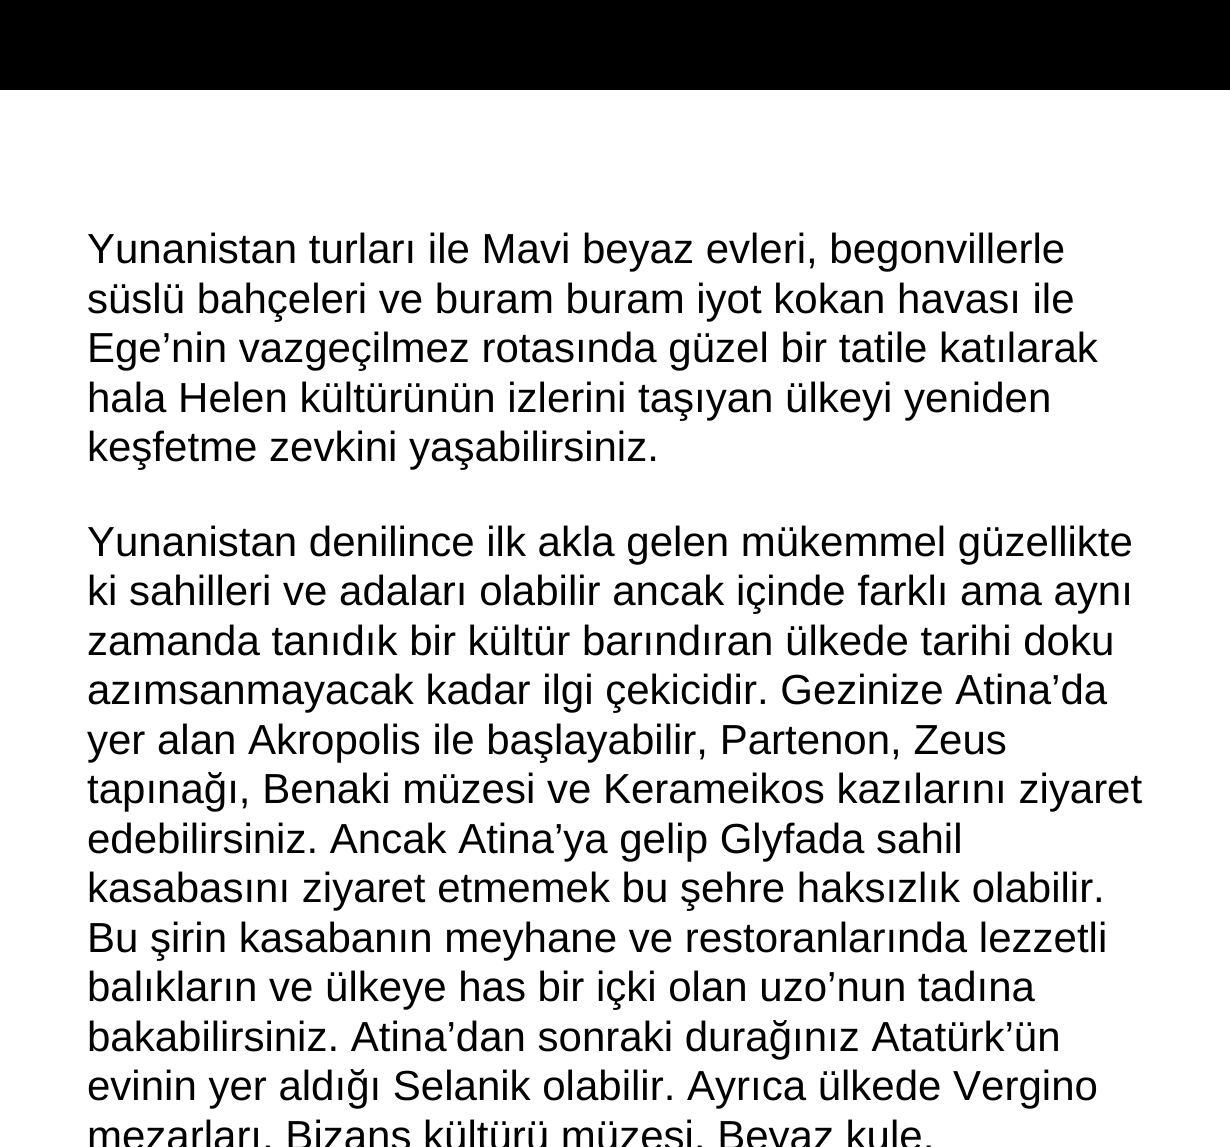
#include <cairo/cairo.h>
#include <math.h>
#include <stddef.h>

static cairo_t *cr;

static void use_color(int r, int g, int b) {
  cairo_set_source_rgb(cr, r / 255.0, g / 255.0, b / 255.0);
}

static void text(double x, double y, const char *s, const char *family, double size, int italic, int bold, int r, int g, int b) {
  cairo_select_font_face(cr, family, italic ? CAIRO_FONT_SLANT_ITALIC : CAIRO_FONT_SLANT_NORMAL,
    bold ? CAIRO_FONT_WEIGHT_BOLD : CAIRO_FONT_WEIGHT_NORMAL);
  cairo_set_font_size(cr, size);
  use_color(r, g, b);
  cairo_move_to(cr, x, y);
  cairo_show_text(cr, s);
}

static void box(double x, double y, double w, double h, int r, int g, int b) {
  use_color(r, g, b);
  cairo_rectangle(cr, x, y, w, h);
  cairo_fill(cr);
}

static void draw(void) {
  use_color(255, 255, 255);
  cairo_paint(cr);
  box(0, 0, 1230, 90, 0, 0, 0);
  text(87, 263, "Yunanistan turları ile Mavi beyaz evleri, begonvillerle", "Liberation Sans", 42, 0, 0, 0, 0, 0);
  text(87, 313, "süslü bahçeleri ve buram buram iyot kokan havası ile", "Liberation Sans", 42, 0, 0, 0, 0, 0);
  text(87, 362, "Ege’nin vazgeçilmez rotasında güzel bir tatile katılarak", "Liberation Sans", 42, 0, 0, 0, 0, 0);
  text(87, 412, "hala Helen kültürünün izlerini taşıyan ülkeyi yeniden", "Liberation Sans", 42, 0, 0, 0, 0, 0);
  text(87, 461, "keşfetme zevkini yaşabilirsiniz.", "Liberation Sans", 42, 0, 0, 0, 0, 0);
  text(87, 556, "Yunanistan denilince ilk akla gelen mükemmel güzellikte", "Liberation Sans", 42, 0, 0, 0, 0, 0);
  text(87, 605, "ki sahilleri ve adaları olabilir ancak içinde farklı ama aynı", "Liberation Sans", 42, 0, 0, 0, 0, 0);
  text(87, 655, "zamanda tanıdık bir kültür barındıran ülkede tarihi doku", "Liberation Sans", 42, 0, 0, 0, 0, 0);
  text(87, 704, "azımsanmayacak kadar ilgi çekicidir. Gezinize Atina’da", "Liberation Sans", 42, 0, 0, 0, 0, 0);
  text(87, 754, "yer alan Akropolis ile başlayabilir, Partenon, Zeus", "Liberation Sans", 42, 0, 0, 0, 0, 0);
  text(87, 803, "tapınağı, Benaki müzesi ve Kerameikos kazılarını ziyaret", "Liberation Sans", 42, 0, 0, 0, 0, 0);
  text(87, 853, "edebilirsiniz. Ancak Atina’ya gelip Glyfada sahil", "Liberation Sans", 42, 0, 0, 0, 0, 0);
  text(87, 902, "kasabasını ziyaret etmemek bu şehre haksızlık olabilir.", "Liberation Sans", 42, 0, 0, 0, 0, 0);
  text(87, 952, "Bu şirin kasabanın meyhane ve restoranlarında lezzetli", "Liberation Sans", 42, 0, 0, 0, 0, 0);
  text(87, 1001, "balıkların ve ülkeye has bir içki olan uzo’nun tadına", "Liberation Sans", 42, 0, 0, 0, 0, 0);
  text(87, 1051, "bakabilirsiniz. Atina’dan sonraki durağınız Atatürk’ün", "Liberation Sans", 42, 0, 0, 0, 0, 0);
  text(87, 1100, "evinin yer aldığı Selanik olabilir. Ayrıca ülkede Vergino", "Liberation Sans", 42, 0, 0, 0, 0, 0);
  text(87, 1150, "mezarları, Bizans kültürü müzesi, Beyaz kule,", "Liberation Sans", 42, 0, 0, 0, 0, 0);
}

int main(void) {
  cairo_surface_t *surface = cairo_image_surface_create(CAIRO_FORMAT_RGB24, 1230, 1147);
  cr = cairo_create(surface);
  cairo_font_options_t *options = cairo_font_options_create();
  cairo_font_options_set_hint_metrics(options, CAIRO_HINT_METRICS_OFF);
  cairo_font_options_set_hint_style(options, CAIRO_HINT_STYLE_NONE);
  cairo_set_font_options(cr, options);
  cairo_set_miter_limit(cr, 4);
  draw();
  cairo_surface_write_to_png(surface, "out.png");
  cairo_font_options_destroy(options);
  cairo_destroy(cr);
  cairo_surface_destroy(surface);
  return 0;
}
